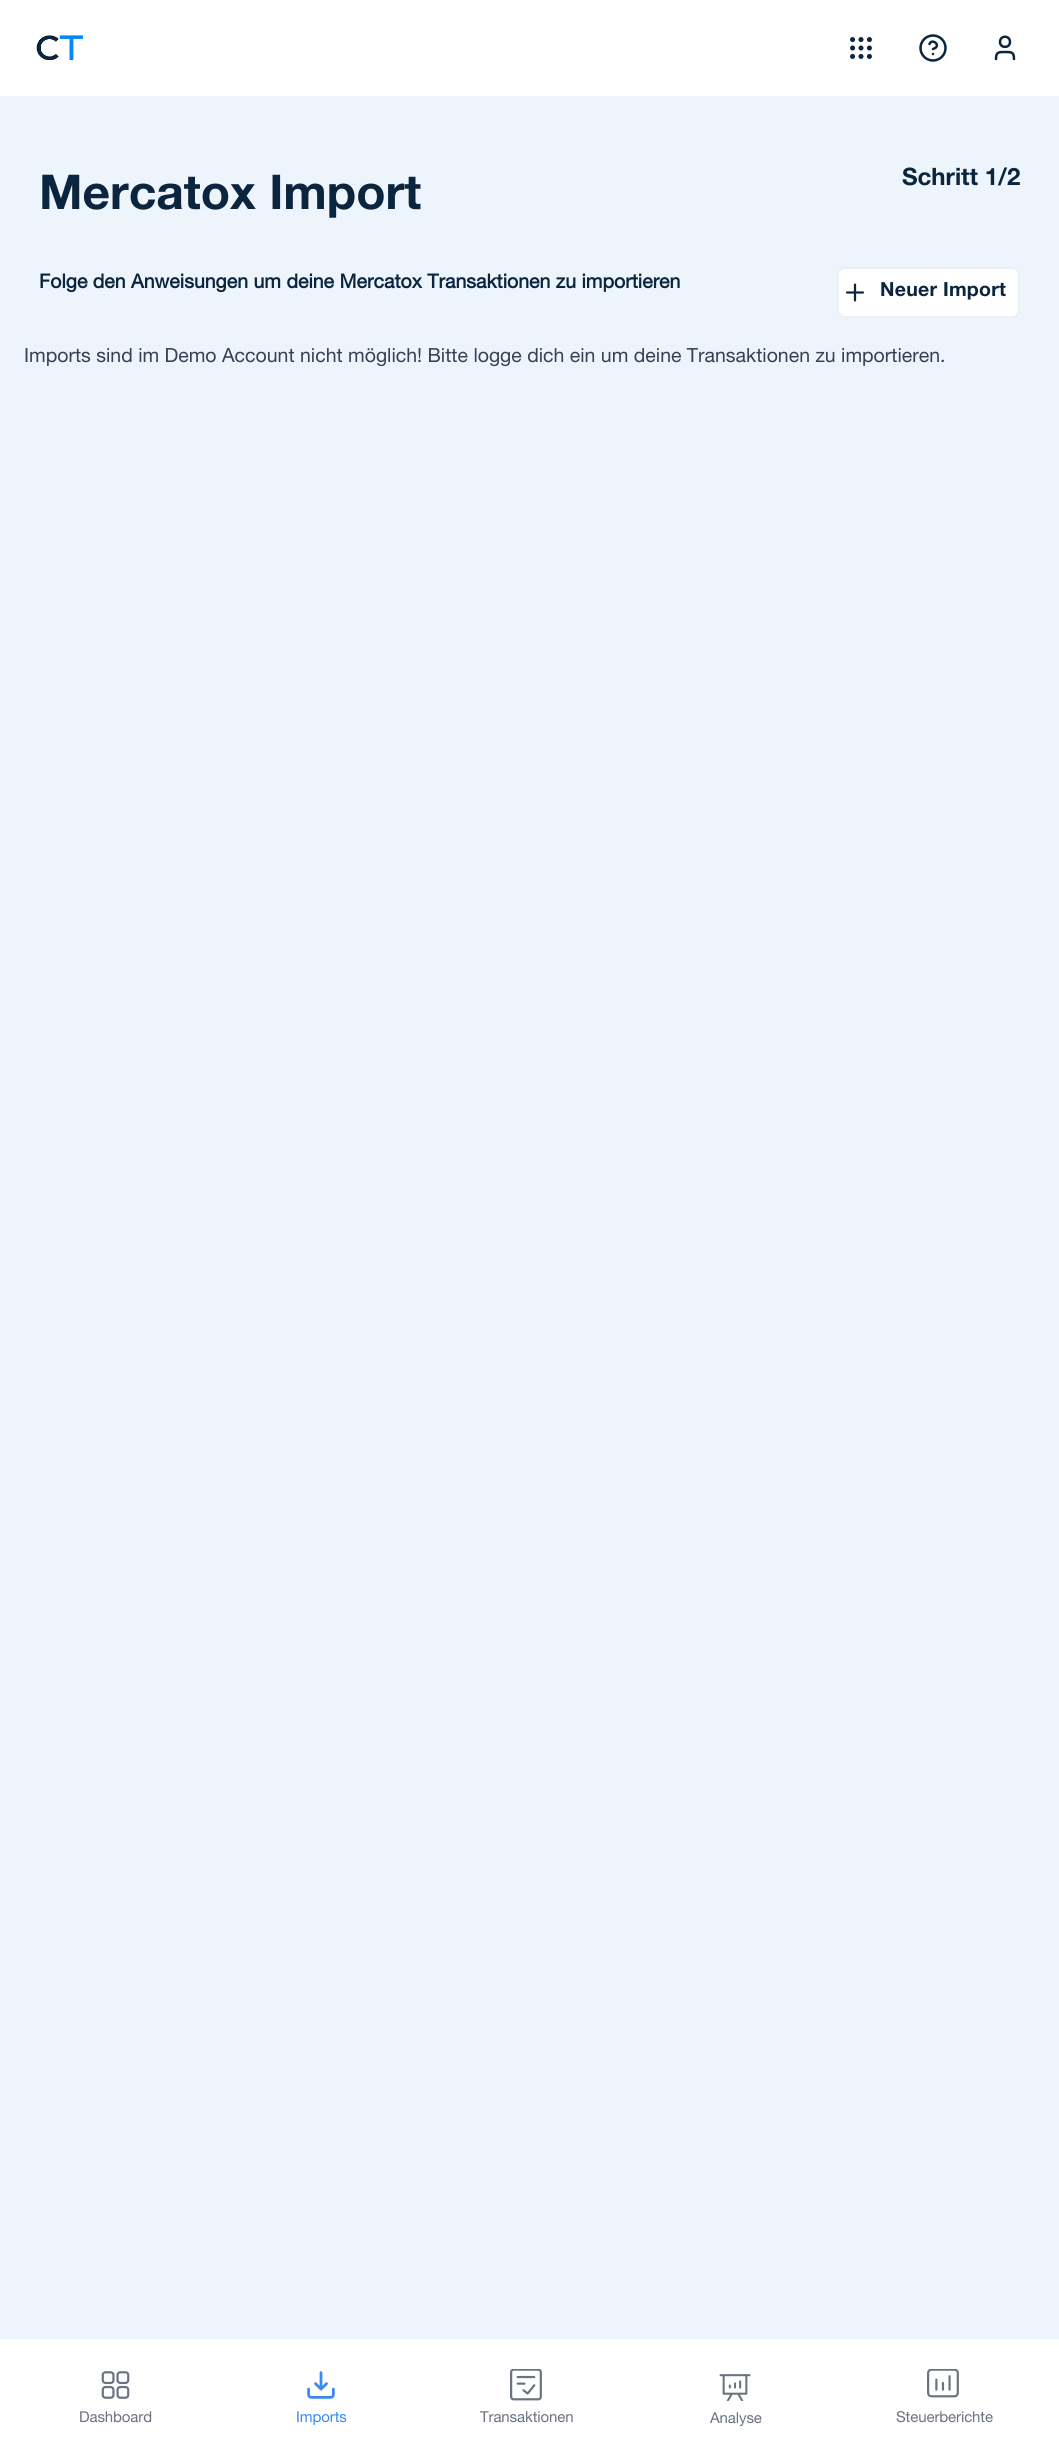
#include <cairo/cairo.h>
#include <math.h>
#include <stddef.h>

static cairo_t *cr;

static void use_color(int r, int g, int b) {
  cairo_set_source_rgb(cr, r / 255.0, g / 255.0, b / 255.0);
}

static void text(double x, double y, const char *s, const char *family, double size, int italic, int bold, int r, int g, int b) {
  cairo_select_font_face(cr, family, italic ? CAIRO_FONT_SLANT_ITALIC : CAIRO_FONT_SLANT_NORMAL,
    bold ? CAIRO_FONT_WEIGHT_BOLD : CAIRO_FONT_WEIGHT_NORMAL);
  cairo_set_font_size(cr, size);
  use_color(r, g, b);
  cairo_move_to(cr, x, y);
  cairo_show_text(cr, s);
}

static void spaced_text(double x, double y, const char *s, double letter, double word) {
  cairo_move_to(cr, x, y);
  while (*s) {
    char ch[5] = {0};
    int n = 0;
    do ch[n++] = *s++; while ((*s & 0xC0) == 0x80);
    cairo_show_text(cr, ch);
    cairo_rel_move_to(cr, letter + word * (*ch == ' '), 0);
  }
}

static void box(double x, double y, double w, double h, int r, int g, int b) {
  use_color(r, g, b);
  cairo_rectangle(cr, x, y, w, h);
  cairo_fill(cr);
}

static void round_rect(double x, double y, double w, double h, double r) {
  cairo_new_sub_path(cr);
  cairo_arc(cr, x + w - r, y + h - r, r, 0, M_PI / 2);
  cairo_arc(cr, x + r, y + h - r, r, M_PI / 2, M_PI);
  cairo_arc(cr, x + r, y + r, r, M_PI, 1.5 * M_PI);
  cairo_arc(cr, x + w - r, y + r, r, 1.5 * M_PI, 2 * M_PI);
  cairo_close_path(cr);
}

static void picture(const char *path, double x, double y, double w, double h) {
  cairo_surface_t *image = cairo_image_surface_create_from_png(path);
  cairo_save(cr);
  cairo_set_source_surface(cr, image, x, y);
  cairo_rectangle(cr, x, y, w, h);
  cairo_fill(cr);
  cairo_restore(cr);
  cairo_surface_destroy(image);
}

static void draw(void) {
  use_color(237, 244, 251);
  cairo_paint(cr);
  use_color(255, 255, 255);
  round_rect(838, 268, 181, 49, 7);
  cairo_fill_preserve(cr);
  use_color(236, 240, 245);
  cairo_stroke(cr);
  picture("img_01.png", 846, 283, 18, 19);
  box(0, 0, 1059, 96, 255, 255, 255);
  picture("img_02.png", 36, 35, 47, 25);
  picture("img_03.png", 850, 37, 22, 22);
  cairo_arc(cr, 933, 48, 12.5, 0, 2 * M_PI);
  use_color(11, 37, 62);
  cairo_set_line_width(cr, 2.5);
  cairo_stroke(cr);
  cairo_new_path(cr);
  cairo_move_to(cr, 929.5, 44);
  cairo_curve_to(cr, 932, 37.5, 942.5, 46, 933, 49);
  cairo_move_to(cr, 933, 54);
  cairo_line_to(cr, 933, 54);
  cairo_set_line_cap(cr, CAIRO_LINE_CAP_ROUND);
  cairo_set_line_join(cr, CAIRO_LINE_JOIN_ROUND);
  cairo_stroke(cr);
  cairo_new_path(cr);
  cairo_move_to(cr, 1014, 59);
  cairo_curve_to(cr, 1014, 52, 1011.5, 52, 1005, 52);
  cairo_curve_to(cr, 998.5, 52, 996, 52, 996, 59);
  cairo_move_to(cr, 1010, 42);
  cairo_curve_to(cr, 1010, 48.5, 1000, 48.5, 1000, 42);
  cairo_curve_to(cr, 1000, 35, 1010, 35, 1010, 42);
  cairo_stroke(cr);
  box(0, 2339, 1059, 119, 255, 255, 255);
  picture("img_04.png", 101, 2371, 29, 28);
  picture("img_05.png", 307, 2371, 28, 28);
  picture("img_06.png", 510, 2369, 32, 32);
  picture("img_07.png", 719, 2374, 32, 27);
  picture("img_08.png", 927, 2369, 32, 29);
  text(39, 209, "Mercatox Import", "Helvetica Neue", 48, 0, 1, 11, 37, 62);
  text(902, 185, "Schritt 1/2", "Helvetica Neue", 24, 0, 1, 11, 37, 62);
  text(39, 288, "Folge den Anweisungen um deine Mercatox Transaktionen zu importieren", "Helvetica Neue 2", 19.5, 0, 1, 11, 37, 62);
  cairo_select_font_face(cr, "Helvetica Neue", CAIRO_FONT_SLANT_NORMAL, CAIRO_FONT_WEIGHT_BOLD);
  spaced_text(880, 296, "Neuer Import", 0.25, 0);
  text(24, 362, "Imports sind im Demo Account nicht möglich! Bitte logge dich ein um deine Transaktionen zu importieren.", "Helvetica Neue", 19.5, 0, 0, 55, 65, 81);
  cairo_set_font_size(cr, 15);
  use_color(107, 114, 128);
  spaced_text(79, 2422, "Dashboard", -0.1, 0);
  use_color(56, 139, 243);
  spaced_text(296, 2422, "Imports", -0.1, 0);
  use_color(107, 114, 128);
  spaced_text(480, 2422, "Transaktionen", -0.1, 0);
  spaced_text(710, 2423, "Analyse", -0.1, 0);
  spaced_text(896, 2422, "Steuerberichte", -0.1, 0);
}

int main(void) {
  cairo_surface_t *surface = cairo_image_surface_create(CAIRO_FORMAT_RGB24, 1059, 2458);
  cr = cairo_create(surface);
  cairo_font_options_t *options = cairo_font_options_create();
  cairo_font_options_set_hint_metrics(options, CAIRO_HINT_METRICS_OFF);
  cairo_font_options_set_hint_style(options, CAIRO_HINT_STYLE_NONE);
  cairo_set_font_options(cr, options);
  cairo_set_miter_limit(cr, 4);
  draw();
  cairo_surface_write_to_png(surface, "out.png");
  cairo_font_options_destroy(options);
  cairo_destroy(cr);
  cairo_surface_destroy(surface);
  return 0;
}
